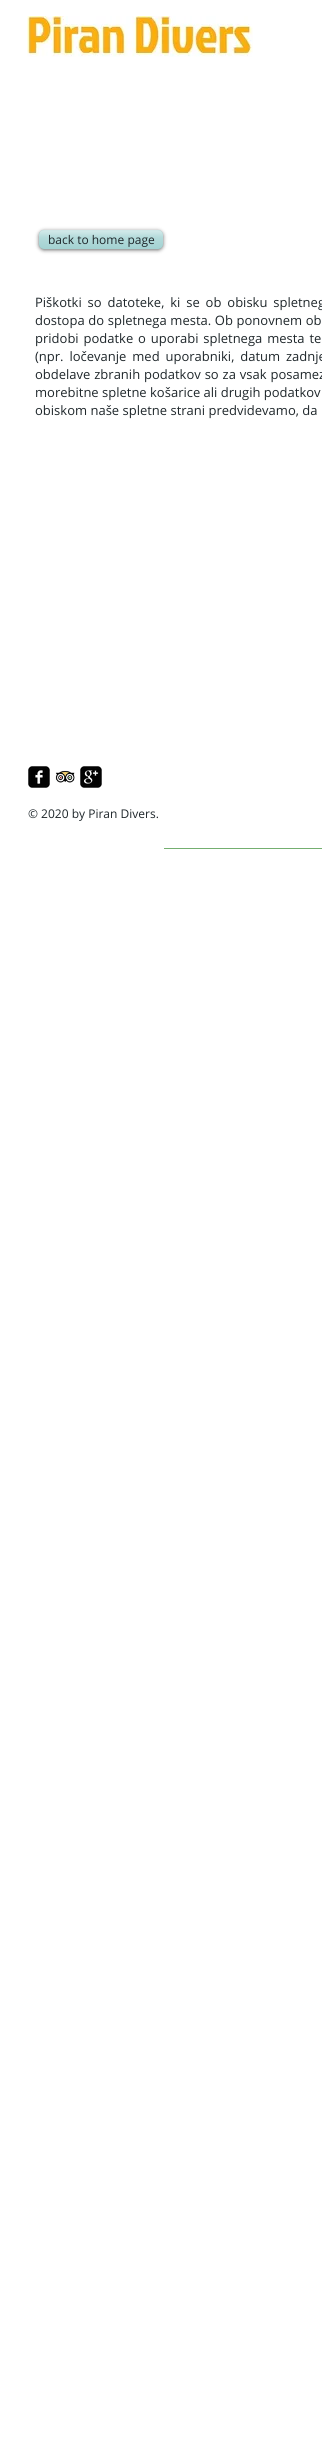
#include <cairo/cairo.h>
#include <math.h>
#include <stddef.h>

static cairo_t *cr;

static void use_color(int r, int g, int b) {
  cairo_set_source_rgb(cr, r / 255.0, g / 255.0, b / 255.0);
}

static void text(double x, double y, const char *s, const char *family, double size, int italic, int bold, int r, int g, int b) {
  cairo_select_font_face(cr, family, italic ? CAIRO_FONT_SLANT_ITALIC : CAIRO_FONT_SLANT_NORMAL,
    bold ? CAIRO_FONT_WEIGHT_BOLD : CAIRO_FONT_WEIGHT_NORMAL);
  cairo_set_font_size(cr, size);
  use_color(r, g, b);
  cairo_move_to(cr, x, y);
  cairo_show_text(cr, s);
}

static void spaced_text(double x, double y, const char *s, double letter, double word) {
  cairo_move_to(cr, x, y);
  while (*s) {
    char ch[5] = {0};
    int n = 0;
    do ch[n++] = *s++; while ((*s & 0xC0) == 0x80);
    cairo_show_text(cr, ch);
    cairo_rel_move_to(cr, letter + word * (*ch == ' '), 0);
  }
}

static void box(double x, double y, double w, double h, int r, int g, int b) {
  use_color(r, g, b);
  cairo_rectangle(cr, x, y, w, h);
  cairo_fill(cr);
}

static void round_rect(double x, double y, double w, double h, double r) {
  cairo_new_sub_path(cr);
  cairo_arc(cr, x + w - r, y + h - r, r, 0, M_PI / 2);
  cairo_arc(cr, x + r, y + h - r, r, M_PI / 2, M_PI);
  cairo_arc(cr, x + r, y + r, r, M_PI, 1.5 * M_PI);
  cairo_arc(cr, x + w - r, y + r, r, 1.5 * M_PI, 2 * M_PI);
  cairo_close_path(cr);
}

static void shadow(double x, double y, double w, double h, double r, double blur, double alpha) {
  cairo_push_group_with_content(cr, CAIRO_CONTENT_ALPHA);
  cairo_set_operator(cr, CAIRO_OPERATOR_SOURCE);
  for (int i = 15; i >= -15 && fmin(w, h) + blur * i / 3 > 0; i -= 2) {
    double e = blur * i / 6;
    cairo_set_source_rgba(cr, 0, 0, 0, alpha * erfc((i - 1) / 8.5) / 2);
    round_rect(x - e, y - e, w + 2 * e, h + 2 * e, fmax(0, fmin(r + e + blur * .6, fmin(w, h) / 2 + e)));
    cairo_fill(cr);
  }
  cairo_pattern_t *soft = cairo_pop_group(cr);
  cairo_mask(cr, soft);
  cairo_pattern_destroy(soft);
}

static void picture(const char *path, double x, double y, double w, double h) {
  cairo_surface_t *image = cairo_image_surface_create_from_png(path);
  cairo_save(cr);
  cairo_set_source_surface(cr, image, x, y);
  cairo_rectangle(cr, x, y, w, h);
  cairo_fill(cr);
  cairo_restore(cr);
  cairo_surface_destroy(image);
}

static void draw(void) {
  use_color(255, 255, 255);
  cairo_paint(cr);
  picture("img_01.png", 27, 16, 226, 41);
  use_color(0, 0, 0);
  shadow(39, 231, 124, 19, 5, 2, 0.6);
  use_color(138, 198, 198);
  round_rect(39, 230, 124, 19, 5);
  cairo_fill(cr);
  picture("img_02.png", 39, 230, 124, 19);
  picture("img_03.png", 28, 766, 22, 22);
  picture("img_04.png", 55, 770, 20, 13);
  picture("img_05.png", 80, 766, 22, 22);
  box(162, 848, 160, 1, 116, 175, 112);
  box(162, 848, 2, 1, 255, 255, 255);
  text(48, 244, "back to home page", "Open Sans", 12, 0, 0, 31, 39, 43);
  cairo_set_font_size(cr, 13);
  spaced_text(35, 307, "Piškotki so datoteke, ki se ob obisku spletneg", 0, 2.5);
  spaced_text(35, 325, "dostopa do spletnega mesta. Ob ponovnem ob", 0, 0.25);
  spaced_text(35, 343, "pridobi podatke o uporabi spletnega mesta te", 0, 1.5);
  spaced_text(35, 361, "(npr. ločevanje med uporabniki, datum zadnje", 0, 2.5);
  spaced_text(35, 379, "obdelave zbranih podatkov so za vsak posamez", 0, 0.5);
  text(35, 397, "morebitne spletne košarice ali drugih podatkov", "Open Sans", 13, 0, 0, 31, 39, 43);
  text(35, 415, "obiskom naše spletne strani predvidevamo, da", "Open Sans", 13, 0, 0, 31, 39, 43);
  text(28, 818, "© 2020 by Piran Divers.", "Open Sans", 12, 0, 0, 31, 39, 43);
}

int main(void) {
  cairo_surface_t *surface = cairo_image_surface_create(CAIRO_FORMAT_RGB24, 322, 2441);
  cr = cairo_create(surface);
  cairo_font_options_t *options = cairo_font_options_create();
  cairo_font_options_set_hint_metrics(options, CAIRO_HINT_METRICS_OFF);
  cairo_font_options_set_hint_style(options, CAIRO_HINT_STYLE_NONE);
  cairo_set_font_options(cr, options);
  cairo_set_miter_limit(cr, 4);
  draw();
  cairo_surface_write_to_png(surface, "out.png");
  cairo_font_options_destroy(options);
  cairo_destroy(cr);
  cairo_surface_destroy(surface);
  return 0;
}
